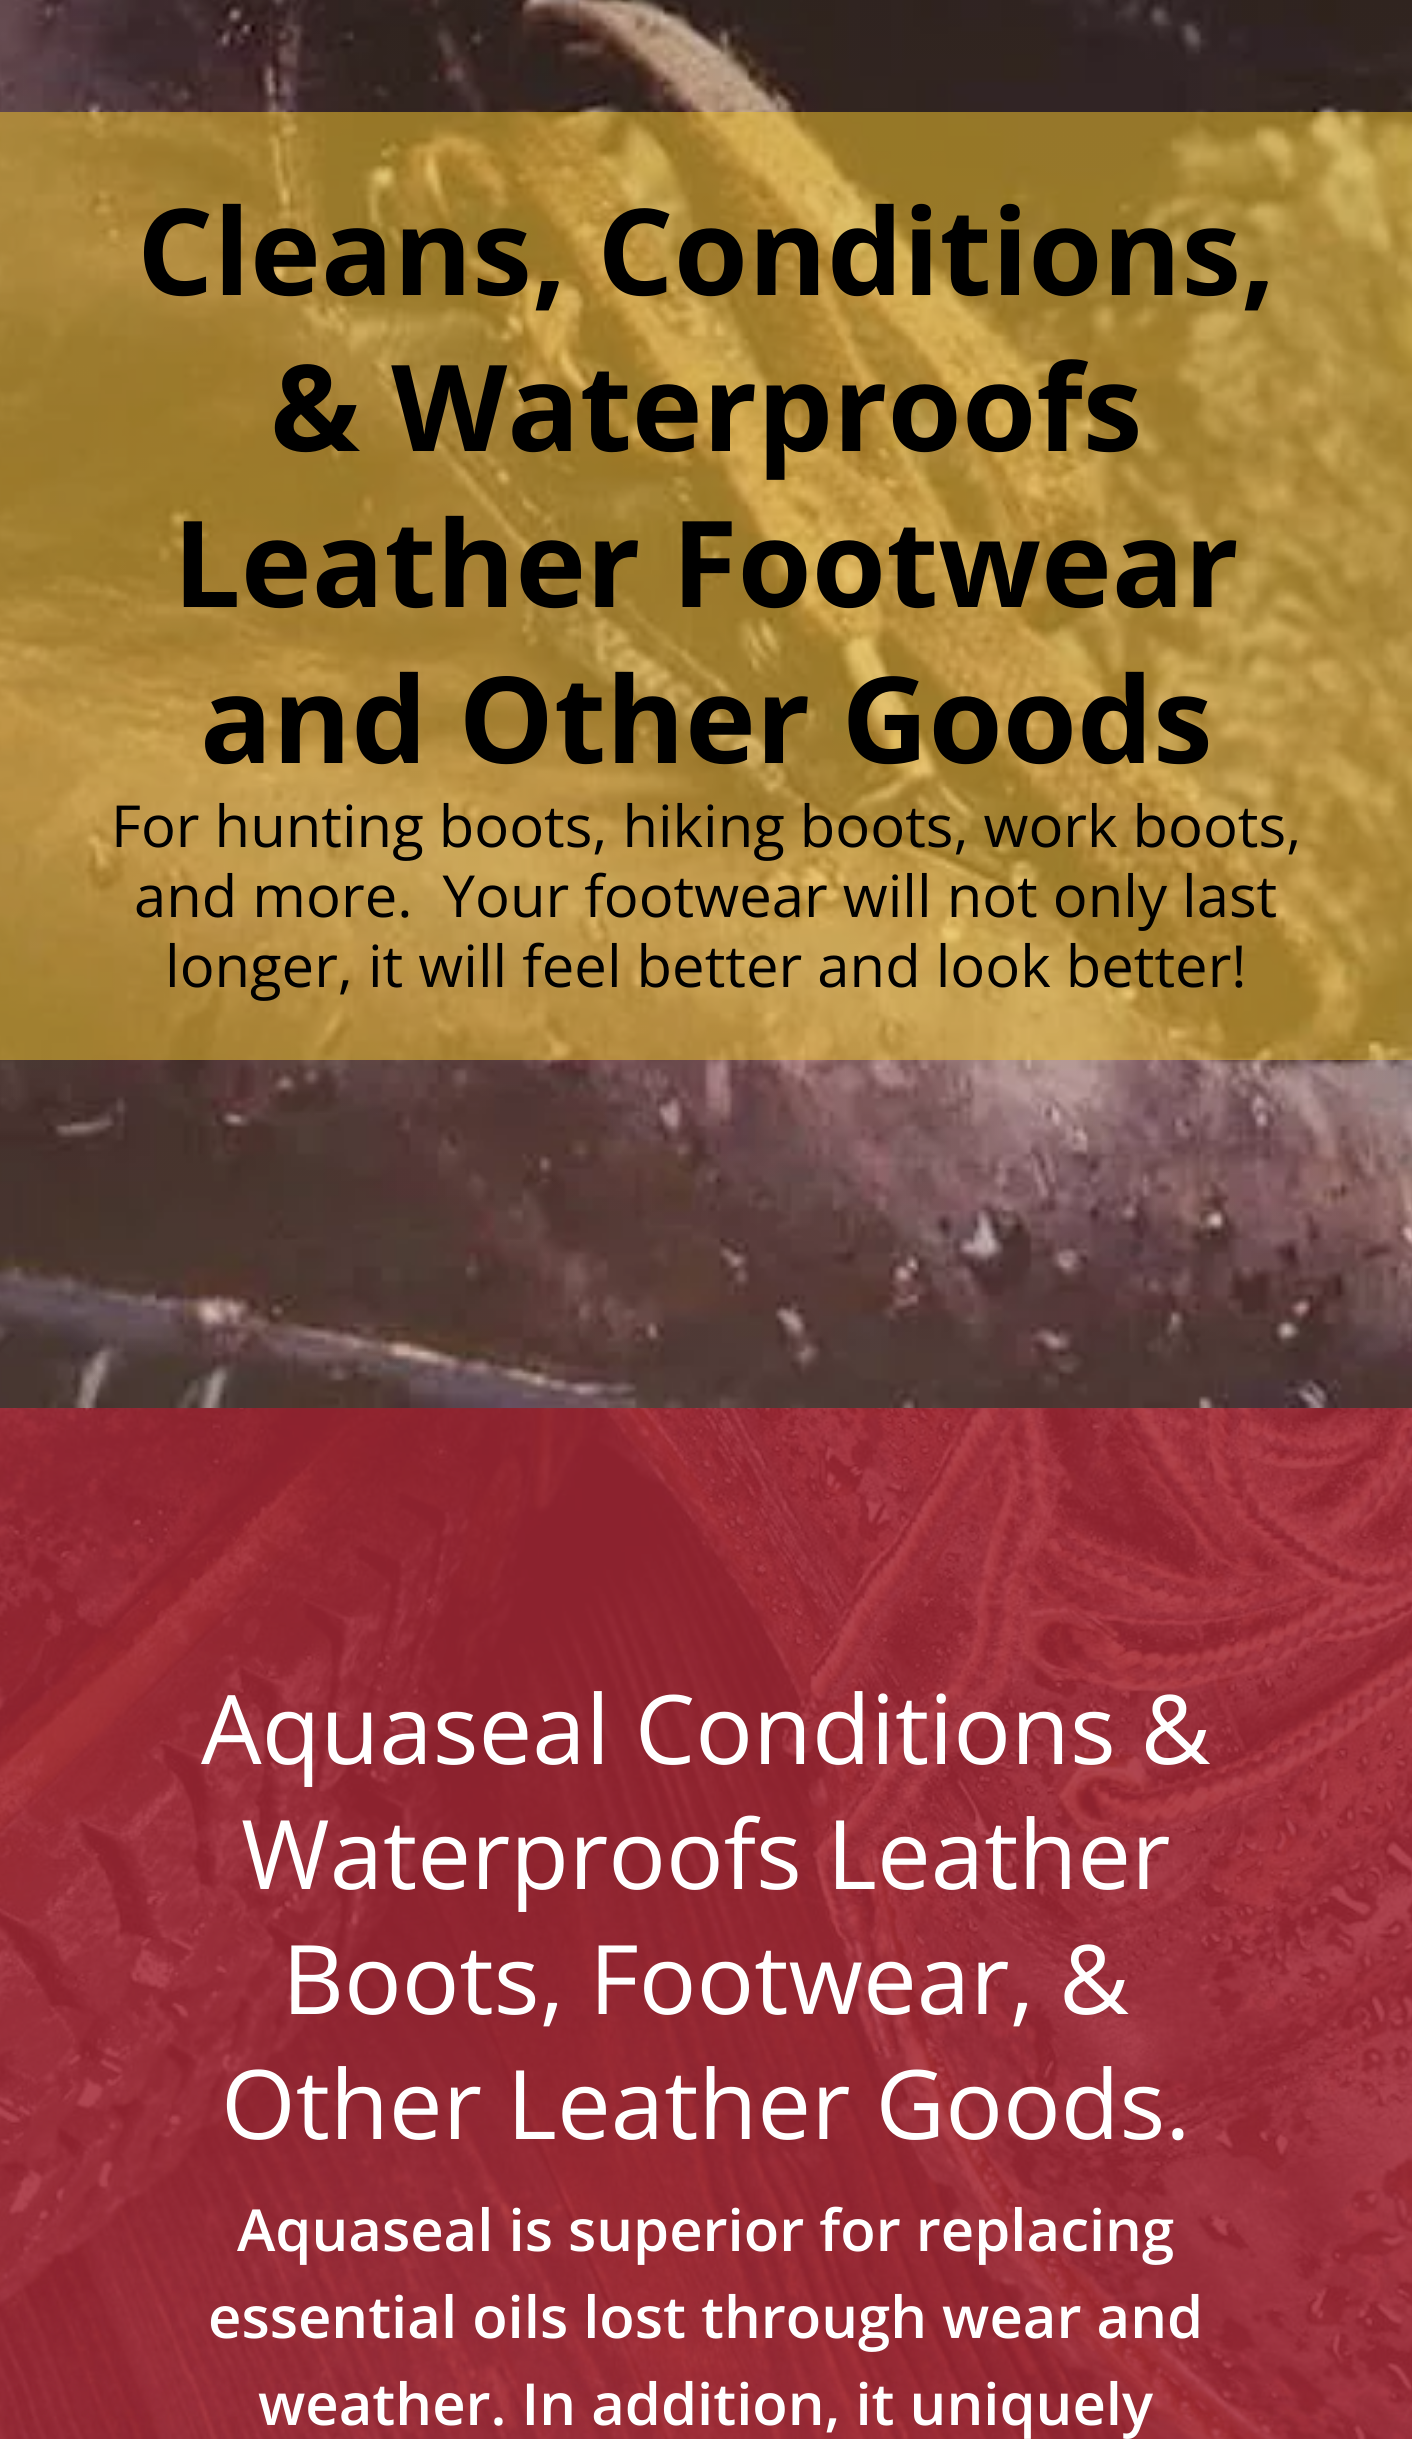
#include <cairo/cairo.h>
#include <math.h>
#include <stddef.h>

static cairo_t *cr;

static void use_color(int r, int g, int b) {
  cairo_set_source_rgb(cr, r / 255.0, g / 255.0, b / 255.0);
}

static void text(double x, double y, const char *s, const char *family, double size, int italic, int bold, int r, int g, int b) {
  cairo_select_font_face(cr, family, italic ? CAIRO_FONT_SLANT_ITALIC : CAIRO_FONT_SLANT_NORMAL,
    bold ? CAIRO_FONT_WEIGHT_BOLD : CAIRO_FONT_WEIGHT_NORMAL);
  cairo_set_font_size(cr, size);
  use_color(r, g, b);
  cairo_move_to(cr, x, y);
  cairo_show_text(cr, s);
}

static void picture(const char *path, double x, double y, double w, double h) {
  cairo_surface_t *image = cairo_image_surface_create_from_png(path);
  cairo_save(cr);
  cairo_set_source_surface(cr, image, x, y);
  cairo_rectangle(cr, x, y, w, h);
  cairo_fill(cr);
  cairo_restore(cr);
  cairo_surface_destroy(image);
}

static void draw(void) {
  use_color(255, 255, 255);
  cairo_paint(cr);
  picture("img_01.png", 0, 0, 1412, 1408);
  cairo_set_source_rgba(cr, 0.91, 0.737, 0.18, 0.55);
  cairo_rectangle(cr, 0, 112, 1412, 948);
  cairo_fill(cr);
  picture("img_02.png", 0, 1408, 1412, 1031);
  text(137, 295, "Cleans, Conditions,", "Open Sans", 120, 0, 1, 0, 0, 0);
  text(270, 451, "& Waterproofs", "Open Sans", 120, 0, 1, 0, 0, 0);
  text(173, 607, "Leather Footwear", "Open Sans", 120, 0, 1, 0, 0, 0);
  text(200, 763, "and Other Goods", "Open Sans", 120, 0, 1, 0, 0, 0);
  text(111, 847, "For hunting boots, hiking boots, work boots,", "Open Sans", 58, 0, 0, 0, 0, 0);
  text(134, 917, "and more.  Your footwear will not only last", "Open Sans", 58, 0, 0, 0, 0, 0);
  text(165, 987, "longer, it will feel better and look better!", "Open Sans", 58, 0, 0, 0, 0, 0);
  text(201, 1764, "Aquaseal Conditions &", "Open Sans", 96, 0, 0, 255, 255, 255);
  text(241, 1889, "Waterproofs Leather", "Open Sans", 96, 0, 0, 255, 255, 255);
  text(282, 2014, "Boots, Footwear, &", "Open Sans", 96, 0, 0, 255, 255, 255);
  text(221, 2139, "Other Leather Goods.", "Open Sans", 96, 0, 0, 255, 255, 255);
  text(237, 2251, "Aquaseal is superior for replacing", "Open Sans SemiBold", 58, 0, 0, 255, 255, 255);
  text(208, 2338, "essential oils lost through wear and", "Open Sans SemiBold", 58, 0, 0, 255, 255, 255);
  text(258, 2425, "weather. In addition, it uniquely", "Open Sans SemiBold", 58, 0, 0, 255, 255, 255);
}

int main(void) {
  cairo_surface_t *surface = cairo_image_surface_create(CAIRO_FORMAT_RGB24, 1412, 2439);
  cr = cairo_create(surface);
  cairo_font_options_t *options = cairo_font_options_create();
  cairo_font_options_set_hint_metrics(options, CAIRO_HINT_METRICS_OFF);
  cairo_font_options_set_hint_style(options, CAIRO_HINT_STYLE_NONE);
  cairo_set_font_options(cr, options);
  cairo_set_miter_limit(cr, 4);
  draw();
  cairo_surface_write_to_png(surface, "out.png");
  cairo_font_options_destroy(options);
  cairo_destroy(cr);
  cairo_surface_destroy(surface);
  return 0;
}
